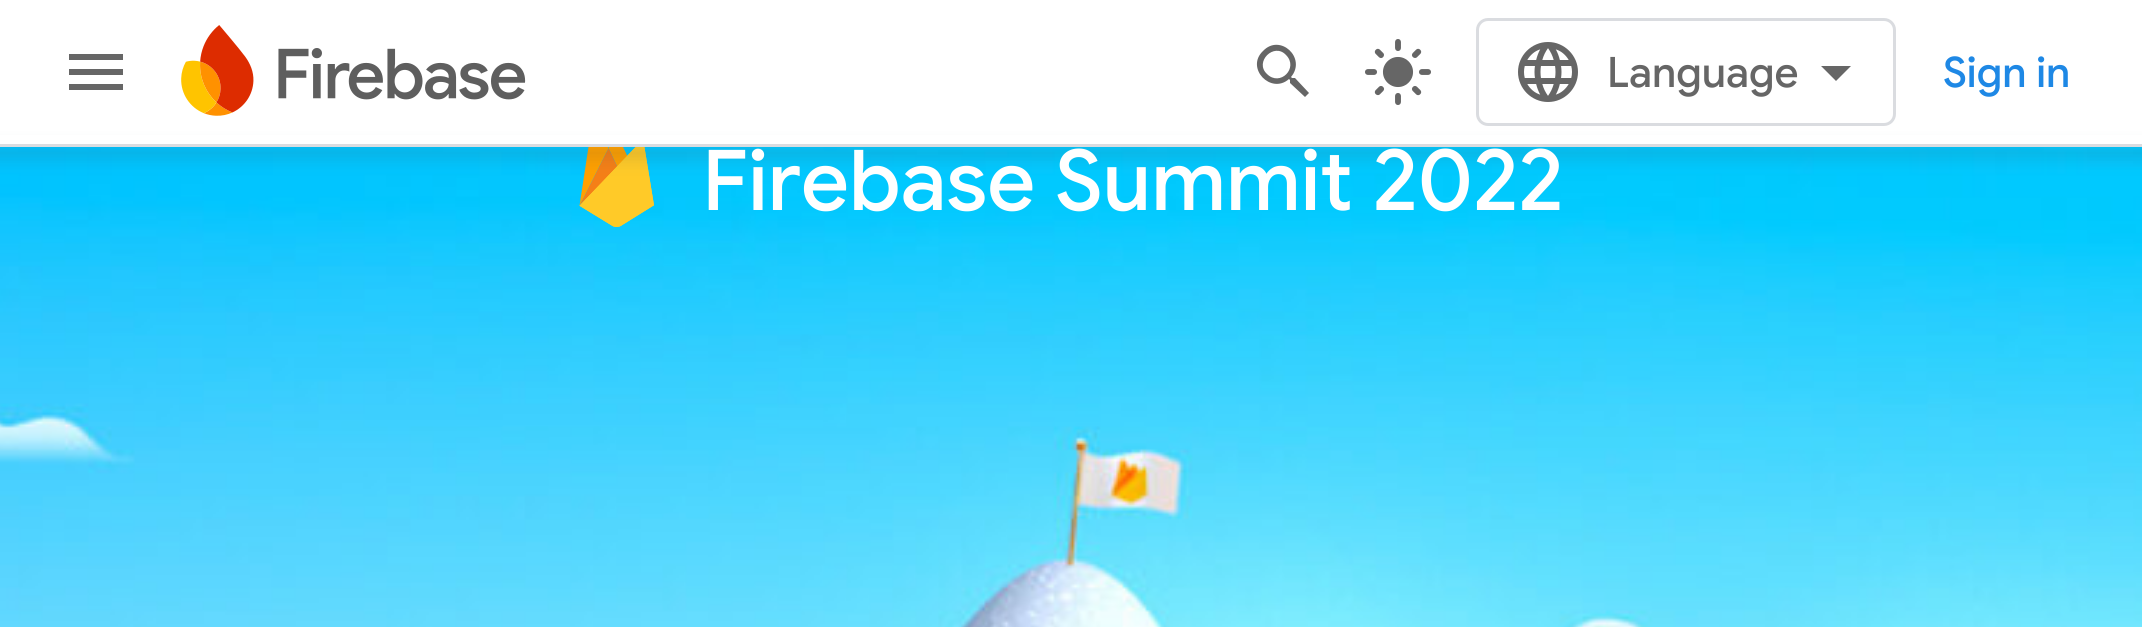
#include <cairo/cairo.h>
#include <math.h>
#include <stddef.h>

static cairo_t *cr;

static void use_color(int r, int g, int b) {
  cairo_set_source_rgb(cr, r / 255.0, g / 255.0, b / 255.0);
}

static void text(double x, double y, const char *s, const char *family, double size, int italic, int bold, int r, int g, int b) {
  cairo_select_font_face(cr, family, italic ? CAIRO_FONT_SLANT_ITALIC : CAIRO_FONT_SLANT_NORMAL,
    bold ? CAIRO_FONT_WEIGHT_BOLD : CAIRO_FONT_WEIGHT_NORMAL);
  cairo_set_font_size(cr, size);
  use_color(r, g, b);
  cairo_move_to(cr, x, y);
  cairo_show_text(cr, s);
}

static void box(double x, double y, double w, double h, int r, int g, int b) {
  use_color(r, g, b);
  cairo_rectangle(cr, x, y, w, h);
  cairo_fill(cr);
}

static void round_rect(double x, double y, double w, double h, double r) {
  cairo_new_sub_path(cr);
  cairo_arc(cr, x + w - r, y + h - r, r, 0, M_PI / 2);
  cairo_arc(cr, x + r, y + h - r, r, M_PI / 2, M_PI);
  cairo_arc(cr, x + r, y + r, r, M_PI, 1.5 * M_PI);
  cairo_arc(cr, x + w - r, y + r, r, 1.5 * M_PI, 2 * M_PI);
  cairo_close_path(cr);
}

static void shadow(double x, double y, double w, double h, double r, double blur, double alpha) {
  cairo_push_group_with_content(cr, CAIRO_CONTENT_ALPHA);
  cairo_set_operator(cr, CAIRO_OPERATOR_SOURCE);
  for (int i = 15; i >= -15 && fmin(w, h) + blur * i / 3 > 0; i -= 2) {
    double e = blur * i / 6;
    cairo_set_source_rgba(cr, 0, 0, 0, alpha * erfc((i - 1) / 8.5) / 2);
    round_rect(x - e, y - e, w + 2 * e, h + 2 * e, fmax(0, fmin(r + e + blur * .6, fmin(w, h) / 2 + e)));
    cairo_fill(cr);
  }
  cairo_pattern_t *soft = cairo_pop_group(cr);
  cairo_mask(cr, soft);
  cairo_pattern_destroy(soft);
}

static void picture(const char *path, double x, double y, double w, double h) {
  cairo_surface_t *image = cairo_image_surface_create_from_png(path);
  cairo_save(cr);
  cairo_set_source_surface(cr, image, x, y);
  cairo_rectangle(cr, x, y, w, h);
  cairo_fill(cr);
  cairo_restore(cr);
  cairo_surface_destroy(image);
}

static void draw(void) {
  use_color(255, 255, 255);
  cairo_paint(cr);
  picture("img_01.png", 0, 147, 2142, 480);
  picture("img_05.png", 579, 147, 75, 80);
  use_color(60, 64, 67);
  shadow(-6, 147, 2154, 12, 0, 9, 0.15);
  box(0, 135, 2142, 9, 255, 255, 255);
  box(0, 144, 2142, 3, 218, 220, 224);
  use_color(102, 102, 102);
  cairo_new_path(cr);
  cairo_move_to(cr, 69, 54);
  cairo_line_to(cr, 123, 54);
  cairo_line_to(cr, 123, 60);
  cairo_line_to(cr, 69, 60);
  cairo_close_path(cr);
  cairo_move_to(cr, 69, 75);
  cairo_line_to(cr, 69, 69);
  cairo_line_to(cr, 123, 69);
  cairo_line_to(cr, 123, 75);
  cairo_close_path(cr);
  cairo_move_to(cr, 69, 90);
  cairo_line_to(cr, 69, 84);
  cairo_line_to(cr, 123, 84);
  cairo_line_to(cr, 123, 90);
  cairo_close_path(cr);
  cairo_fill(cr);
  picture("img_02.png", 181, 25, 345, 91);
  cairo_new_path(cr);
  cairo_move_to(cr, 1267, 74);
  cairo_curve_to(cr, 1280, 87, 1299, 68, 1286, 55);
  cairo_curve_to(cr, 1274, 42, 1254, 62, 1267, 74);
  cairo_close_path(cr);
  cairo_move_to(cr, 1295, 78);
  cairo_line_to(cr, 1309, 93);
  cairo_line_to(cr, 1305, 97);
  cairo_line_to(cr, 1290, 83);
  cairo_line_to(cr, 1290, 80);
  cairo_line_to(cr, 1289, 79);
  cairo_curve_to(cr, 1271, 95, 1245, 68, 1263, 51);
  cairo_curve_to(cr, 1280, 33, 1307, 58, 1291, 77);
  cairo_line_to(cr, 1292, 78);
  cairo_close_path(cr);
  cairo_fill(cr);
  picture("img_03.png", 1365, 39, 66, 66);
  round_rect(1477.5, 19.5, 417, 105, 10.5);
  use_color(218, 220, 224);
  cairo_set_line_width(cr, 3);
  cairo_stroke(cr);
  picture("img_04.png", 1518, 42, 60, 60);
  use_color(102, 102, 102);
  cairo_new_path(cr);
  cairo_move_to(cr, 1836, 81);
  cairo_line_to(cr, 1821, 66);
  cairo_line_to(cr, 1851, 66);
  cairo_close_path(cr);
  cairo_fill(cr);
  text(1607, 87, "Language", "Google Sans Medium", 42, 0, 0, 102, 102, 102);
  text(1943, 87, "Sign in", "Google Sans Medium", 42, 0, 0, 30, 136, 229);
  text(702, 210, "Firebase Summit 2022", "Google Sans Medium", 84, 0, 0, 255, 255, 255);
}

int main(void) {
  cairo_surface_t *surface = cairo_image_surface_create(CAIRO_FORMAT_RGB24, 2142, 627);
  cr = cairo_create(surface);
  cairo_font_options_t *options = cairo_font_options_create();
  cairo_font_options_set_hint_metrics(options, CAIRO_HINT_METRICS_OFF);
  cairo_font_options_set_hint_style(options, CAIRO_HINT_STYLE_NONE);
  cairo_set_font_options(cr, options);
  cairo_set_miter_limit(cr, 4);
  draw();
  cairo_surface_write_to_png(surface, "out.png");
  cairo_font_options_destroy(options);
  cairo_destroy(cr);
  cairo_surface_destroy(surface);
  return 0;
}
